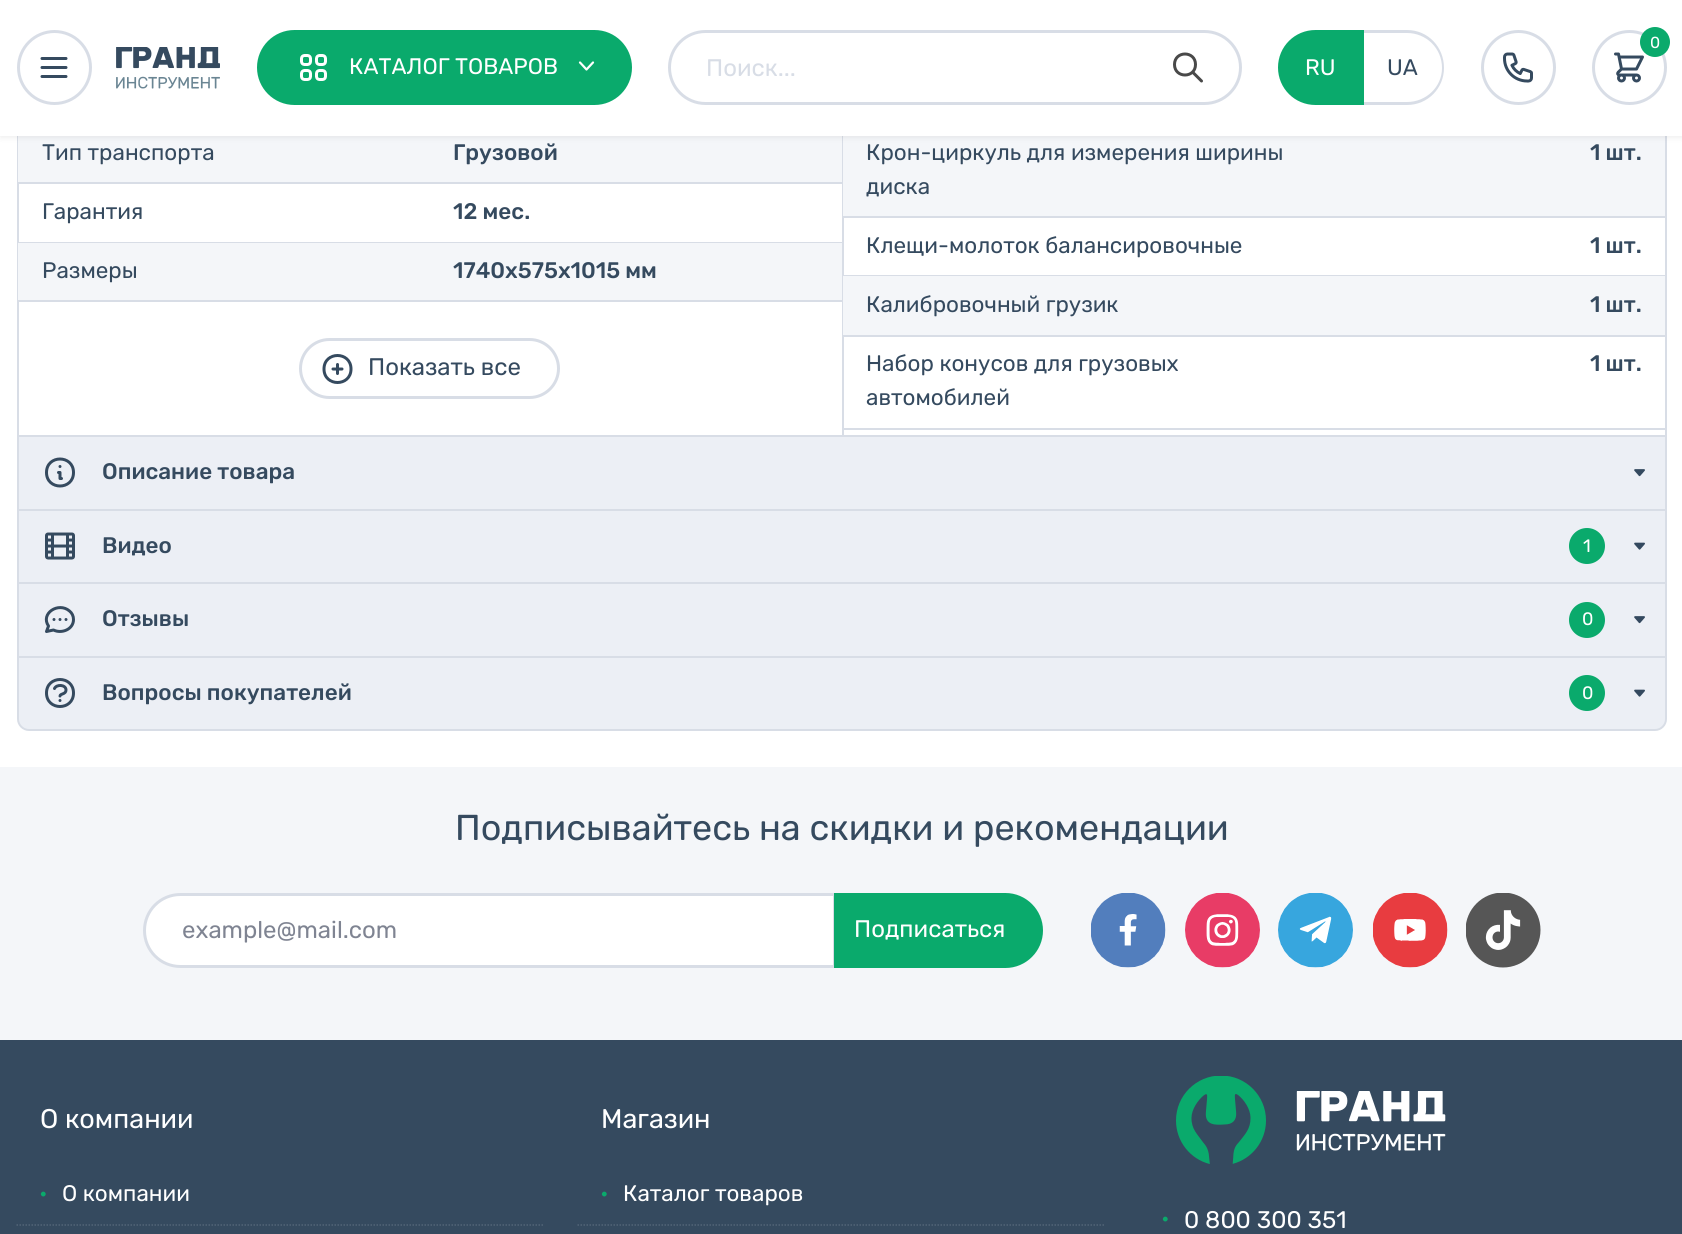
#include <cairo/cairo.h>
#include <math.h>
#include <stddef.h>

static cairo_t *cr;

static void use_color(int r, int g, int b) {
  cairo_set_source_rgb(cr, r / 255.0, g / 255.0, b / 255.0);
}

static void text(double x, double y, const char *s, const char *family, double size, int italic, int bold, int r, int g, int b) {
  cairo_select_font_face(cr, family, italic ? CAIRO_FONT_SLANT_ITALIC : CAIRO_FONT_SLANT_NORMAL,
    bold ? CAIRO_FONT_WEIGHT_BOLD : CAIRO_FONT_WEIGHT_NORMAL);
  cairo_set_font_size(cr, size);
  use_color(r, g, b);
  cairo_move_to(cr, x, y);
  cairo_show_text(cr, s);
}

static void box(double x, double y, double w, double h, int r, int g, int b) {
  use_color(r, g, b);
  cairo_rectangle(cr, x, y, w, h);
  cairo_fill(cr);
}

static void round_rect(double x, double y, double w, double h, double r) {
  cairo_new_sub_path(cr);
  cairo_arc(cr, x + w - r, y + h - r, r, 0, M_PI / 2);
  cairo_arc(cr, x + r, y + h - r, r, M_PI / 2, M_PI);
  cairo_arc(cr, x + r, y + r, r, M_PI, 1.5 * M_PI);
  cairo_arc(cr, x + w - r, y + r, r, 1.5 * M_PI, 2 * M_PI);
  cairo_close_path(cr);
}

static void shadow(double x, double y, double w, double h, double r, double blur, double alpha) {
  cairo_push_group_with_content(cr, CAIRO_CONTENT_ALPHA);
  cairo_set_operator(cr, CAIRO_OPERATOR_SOURCE);
  for (int i = 15; i >= -15 && fmin(w, h) + blur * i / 3 > 0; i -= 2) {
    double e = blur * i / 6;
    cairo_set_source_rgba(cr, 0, 0, 0, alpha * erfc((i - 1) / 8.5) / 2);
    round_rect(x - e, y - e, w + 2 * e, h + 2 * e, fmax(0, fmin(r + e + blur * .6, fmin(w, h) / 2 + e)));
    cairo_fill(cr);
  }
  cairo_pattern_t *soft = cairo_pop_group(cr);
  cairo_mask(cr, soft);
  cairo_pattern_destroy(soft);
}

static void picture(const char *path, double x, double y, double w, double h) {
  cairo_surface_t *image = cairo_image_surface_create_from_png(path);
  cairo_save(cr);
  cairo_set_source_surface(cr, image, x, y);
  cairo_rectangle(cr, x, y, w, h);
  cairo_fill(cr);
  cairo_restore(cr);
  cairo_surface_destroy(image);
}

static void draw(void) {
  use_color(255, 255, 255);
  cairo_paint(cr);
  box(1665, 136, 2, 299, 216, 221, 230);
  box(17, 136, 2, 299, 216, 221, 230);
  box(18, 136, 824, 46, 244, 246, 249);
  box(842, 136, 2, 299, 216, 221, 230);
  box(843, 136, 822, 80, 244, 246, 249);
  use_color(26, 26, 26);
  shadow(0, 3, 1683, 135, 0, 3, 0.07);
  box(0, 0, 1682, 136, 255, 255, 255);
  cairo_arc(cr, 1518.5, 67.5, 36, 0, 2 * M_PI);
  use_color(216, 221, 230);
  cairo_set_line_width(cr, 3);
  cairo_stroke(cr);
  picture("img_01.png", 1503, 52, 30, 31);
  cairo_arc(cr, 1629.5, 67.5, 36, 0, 2 * M_PI);
  cairo_stroke(cr);
  picture("img_02.png", 1614, 52, 30, 31);
  use_color(10, 170, 108);
  cairo_arc(cr, 1655, 42, 15, 0, 2 * M_PI);
  cairo_fill(cr);
  cairo_arc(cr, 54.5, 67.5, 36, 0, 2 * M_PI);
  use_color(216, 221, 230);
  cairo_stroke(cr);
  cairo_new_path(cr);
  cairo_move_to(cr, 42, 58.5);
  cairo_line_to(cr, 66, 58.5);
  cairo_move_to(cr, 42, 67.5);
  cairo_line_to(cr, 66, 67.5);
  cairo_move_to(cr, 42, 76.5);
  cairo_line_to(cr, 66, 76.5);
  use_color(53, 74, 95);
  cairo_set_line_cap(cr, CAIRO_LINE_CAP_ROUND);
  cairo_set_line_join(cr, CAIRO_LINE_JOIN_ROUND);
  cairo_stroke(cr);
  picture("img_03.png", 116, 47, 104, 42);
  use_color(10, 170, 108);
  round_rect(258.5, 31.5, 372, 72, 36);
  cairo_fill_preserve(cr);
  cairo_set_line_cap(cr, CAIRO_LINE_CAP_BUTT);
  cairo_set_line_join(cr, CAIRO_LINE_JOIN_MITER);
  cairo_stroke(cr);
  picture("img_04.png", 300, 54, 27, 27);
  cairo_new_path(cr);
  cairo_move_to(cr, 580, 62.5);
  cairo_line_to(cr, 586.5, 69.5);
  cairo_line_to(cr, 593, 62.5);
  use_color(255, 255, 255);
  cairo_set_line_width(cr, 2.2);
  cairo_set_line_cap(cr, CAIRO_LINE_CAP_ROUND);
  cairo_set_line_join(cr, CAIRO_LINE_JOIN_ROUND);
  cairo_stroke(cr);
  round_rect(669.5, 31.5, 571, 72, 36);
  use_color(216, 221, 230);
  cairo_set_line_width(cr, 3);
  cairo_set_line_cap(cr, CAIRO_LINE_CAP_BUTT);
  cairo_set_line_join(cr, CAIRO_LINE_JOIN_MITER);
  cairo_stroke(cr);
  cairo_new_path(cr);
  cairo_move_to(cr, 1201.5, 81);
  cairo_line_to(cr, 1192.5, 72);
  cairo_move_to(cr, 1195.5, 64.5);
  cairo_curve_to(cr, 1195.5, 78.5, 1174.5, 78.5, 1174.5, 64.5);
  cairo_curve_to(cr, 1174.5, 50.5, 1195.5, 50.5, 1195.5, 64.5);
  cairo_close_path(cr);
  use_color(73, 73, 73);
  cairo_set_line_cap(cr, CAIRO_LINE_CAP_ROUND);
  cairo_set_line_join(cr, CAIRO_LINE_JOIN_ROUND);
  cairo_stroke(cr);
  use_color(10, 170, 108);
  cairo_new_path(cr);
  cairo_move_to(cr, 1315.5, 31.5);
  cairo_line_to(cr, 1362.5, 31.5);
  cairo_line_to(cr, 1362.5, 103.5);
  cairo_line_to(cr, 1315.5, 103.5);
  cairo_curve_to(cr, 1295.5, 103.5, 1279.5, 87.5, 1279.5, 67.5);
  cairo_curve_to(cr, 1279.5, 47.5, 1295.5, 31.5, 1315.5, 31.5);
  cairo_close_path(cr);
  cairo_fill_preserve(cr);
  cairo_set_line_cap(cr, CAIRO_LINE_CAP_BUTT);
  cairo_set_line_join(cr, CAIRO_LINE_JOIN_MITER);
  cairo_stroke(cr);
  use_color(216, 221, 230);
  cairo_set_fill_rule(cr, CAIRO_FILL_RULE_EVEN_ODD);
  cairo_new_path(cr);
  cairo_move_to(cr, 1364, 30);
  cairo_line_to(cr, 1407, 30);
  cairo_curve_to(cr, 1428, 30, 1444, 47, 1444, 68);
  cairo_curve_to(cr, 1444, 88, 1428, 105, 1407, 105);
  cairo_line_to(cr, 1364, 105);
  cairo_close_path(cr);
  cairo_move_to(cr, 1364, 33);
  cairo_line_to(cr, 1407, 33);
  cairo_curve_to(cr, 1426, 33, 1442, 48, 1442, 68);
  cairo_curve_to(cr, 1442, 87, 1426, 102, 1407, 102);
  cairo_line_to(cr, 1364, 102);
  cairo_close_path(cr);
  cairo_fill(cr);
  box(18, 182, 824, 2, 216, 221, 230);
  box(18, 242, 824, 1, 216, 221, 230);
  box(18, 243, 824, 57, 244, 246, 249);
  box(18, 300, 824, 2, 216, 221, 230);
  round_rect(300.5, 339.5, 258, 58, 29);
  cairo_stroke(cr);
  cairo_new_path(cr);
  cairo_move_to(cr, 337.5, 364.5);
  cairo_line_to(cr, 337.5, 369);
  cairo_move_to(cr, 337.5, 369);
  cairo_line_to(cr, 337.5, 373.5);
  cairo_move_to(cr, 337.5, 369);
  cairo_line_to(cr, 342, 369);
  cairo_move_to(cr, 337.5, 369);
  cairo_line_to(cr, 333, 369);
  cairo_move_to(cr, 351, 369);
  cairo_curve_to(cr, 351, 387, 324, 387, 324, 369);
  cairo_curve_to(cr, 324, 351, 351, 351, 351, 369);
  cairo_close_path(cr);
  use_color(53, 74, 95);
  cairo_set_line_cap(cr, CAIRO_LINE_CAP_ROUND);
  cairo_set_line_join(cr, CAIRO_LINE_JOIN_ROUND);
  cairo_stroke(cr);
  box(843, 216, 822, 2, 216, 221, 230);
  box(843, 275, 822, 1, 216, 221, 230);
  box(843, 276, 822, 59, 244, 246, 249);
  box(843, 335, 822, 2, 216, 221, 230);
  box(843, 428, 822, 2, 216, 221, 230);
  box(19, 437, 1646, 72, 236, 239, 245);
  box(17, 435, 1650, 2, 216, 221, 230);
  box(1665, 435, 2, 74, 216, 221, 230);
  box(17, 435, 2, 74, 216, 221, 230);
  cairo_new_path(cr);
  cairo_move_to(cr, 61.5, 478.5);
  cairo_line_to(cr, 60, 478.5);
  cairo_line_to(cr, 60, 472.5);
  cairo_line_to(cr, 58.5, 472.5);
  cairo_move_to(cr, 60, 466.5);
  cairo_line_to(cr, 60, 466.5);
  cairo_move_to(cr, 73.5, 472.5);
  cairo_curve_to(cr, 73.5, 490.5, 46.5, 490.5, 46.5, 472.5);
  cairo_curve_to(cr, 46.5, 454.5, 73.5, 454.5, 73.5, 472.5);
  cairo_close_path(cr);
  use_color(53, 74, 95);
  cairo_stroke(cr);
  picture("img_05.png", 1634, 469, 11, 8);
  box(19, 511, 1646, 71, 236, 239, 245);
  box(17, 509, 1650, 2, 216, 221, 230);
  box(1665, 509, 2, 73, 216, 221, 230);
  box(17, 509, 2, 73, 216, 221, 230);
  picture("img_06.png", 45, 532, 30, 28);
  use_color(10, 170, 108);
  cairo_arc(cr, 1587, 546, 18, 0, 2 * M_PI);
  cairo_fill(cr);
  picture("img_07.png", 1634, 542, 11, 8);
  box(19, 584, 1646, 72, 236, 239, 245);
  box(17, 582, 1650, 2, 216, 221, 230);
  box(1665, 582, 2, 74, 216, 221, 230);
  box(17, 582, 2, 74, 216, 221, 230);
  cairo_new_path(cr);
  cairo_move_to(cr, 54, 619.5);
  cairo_line_to(cr, 54, 619.5);
  cairo_move_to(cr, 60, 619.5);
  cairo_line_to(cr, 60, 619.5);
  cairo_move_to(cr, 66, 619.5);
  cairo_line_to(cr, 66, 619.5);
  cairo_move_to(cr, 73.5, 619.5);
  cairo_curve_to(cr, 73.5, 629.5, 61.5, 634, 53.5, 630);
  cairo_line_to(cr, 46.5, 631.5);
  cairo_line_to(cr, 48.5, 626);
  cairo_curve_to(cr, 40, 613.5, 58.5, 601.5, 69.5, 611);
  cairo_curve_to(cr, 72, 613, 73.5, 616, 73.5, 619.5);
  cairo_close_path(cr);
  use_color(53, 74, 95);
  cairo_stroke(cr);
  use_color(10, 170, 108);
  cairo_arc(cr, 1587, 620, 18, 0, 2 * M_PI);
  cairo_fill(cr);
  picture("img_05.png", 1634, 616, 11, 8);
  use_color(236, 239, 245);
  cairo_new_path(cr);
  cairo_move_to(cr, 18, 657);
  cairo_line_to(cr, 1666, 657);
  cairo_line_to(cr, 1666, 719);
  cairo_curve_to(cr, 1666, 725, 1661, 730, 1655, 730);
  cairo_line_to(cr, 29, 730);
  cairo_curve_to(cr, 23, 730, 18, 725, 18, 719);
  cairo_close_path(cr);
  cairo_fill_preserve(cr);
  use_color(216, 221, 230);
  cairo_set_line_width(cr, 2);
  cairo_set_line_cap(cr, CAIRO_LINE_CAP_BUTT);
  cairo_set_line_join(cr, CAIRO_LINE_JOIN_MITER);
  cairo_stroke(cr);
  cairo_new_path(cr);
  cairo_move_to(cr, 54.5, 688.5);
  cairo_curve_to(cr, 56.5, 684, 66, 684.5, 66, 690);
  cairo_curve_to(cr, 66, 694.5, 60, 693.5, 60, 696);
  cairo_move_to(cr, 60, 700.5);
  cairo_line_to(cr, 60, 700.5);
  cairo_move_to(cr, 73.5, 693);
  cairo_curve_to(cr, 73.5, 711, 46.5, 711, 46.5, 693);
  cairo_curve_to(cr, 46.5, 675, 73.5, 675, 73.5, 693);
  cairo_close_path(cr);
  use_color(53, 74, 95);
  cairo_set_line_width(cr, 3);
  cairo_set_line_cap(cr, CAIRO_LINE_CAP_ROUND);
  cairo_set_line_join(cr, CAIRO_LINE_JOIN_ROUND);
  cairo_stroke(cr);
  use_color(10, 170, 108);
  cairo_arc(cr, 1587, 693, 18, 0, 2 * M_PI);
  cairo_fill(cr);
  picture("img_07.png", 1634, 689, 11, 8);
  box(0, 767, 1682, 273, 244, 246, 249);
  use_color(255, 255, 255);
  cairo_new_path(cr);
  cairo_move_to(cr, 180.5, 894.5);
  cairo_line_to(cr, 834.5, 894.5);
  cairo_line_to(cr, 834.5, 966.5);
  cairo_line_to(cr, 180.5, 966.5);
  cairo_curve_to(cr, 160.5, 966.5, 144.5, 950.5, 144.5, 930.5);
  cairo_curve_to(cr, 144.5, 910.5, 160.5, 894.5, 180.5, 894.5);
  cairo_close_path(cr);
  cairo_fill_preserve(cr);
  use_color(216, 221, 230);
  cairo_set_line_cap(cr, CAIRO_LINE_CAP_BUTT);
  cairo_set_line_join(cr, CAIRO_LINE_JOIN_MITER);
  cairo_stroke(cr);
  use_color(10, 170, 108);
  cairo_new_path(cr);
  cairo_move_to(cr, 835, 894);
  cairo_line_to(cr, 1005.5, 894);
  cairo_curve_to(cr, 1025.5, 894, 1042, 910.5, 1042, 930.5);
  cairo_curve_to(cr, 1042, 950.5, 1025.5, 967, 1005.5, 967);
  cairo_line_to(cr, 835, 967);
  cairo_close_path(cr);
  cairo_fill_preserve(cr);
  cairo_set_line_width(cr, 2);
  cairo_stroke(cr);
  picture("img_08.png", 1091, 893, 75, 75);
  picture("img_09.png", 1185, 893, 75, 75);
  picture("img_10.png", 1278, 893, 75, 75);
  picture("img_11.png", 1373, 893, 75, 75);
  picture("img_12.png", 1466, 893, 75, 75);
  box(0, 1040, 1682, 194, 53, 74, 95);
  cairo_new_path(cr);
  cairo_move_to(cr, 16.5, 1225);
  cairo_line_to(cr, 544.5, 1225);
  use_color(83, 101, 119);
  cairo_set_line_width(cr, 1.5);
  cairo_set_dash(cr, (double[]){1.5, 1.5}, 2, 0);
  cairo_stroke(cr);
  cairo_new_path(cr);
  cairo_move_to(cr, 577.5, 1225);
  cairo_line_to(cr, 1105.5, 1225);
  cairo_stroke(cr);
  picture("img_13.png", 1176, 1076, 90, 88);
  picture("img_14.png", 1296, 1091, 150, 60);
  text(1650, 48, "0", "Rubik", 16, 0, 0, 255, 255, 255);
  text(349, 74, "КАТАЛОГ ТОВАРОВ", "Rubik", 22.5, 0, 0, 255, 255, 255);
  text(706, 76, "Поиск...", "Rubik", 24, 0, 0, 216, 221, 230);
  text(1305, 75, "RU", "Rubik", 22.5, 0, 0, 255, 255, 255);
  text(1387, 75, "UA", "Rubik", 22.5, 0, 0, 53, 74, 95);
  text(42, 160, "Тип транспорта", "Rubik", 22.5, 0, 0, 53, 74, 95);
  text(453, 160, "Грузовой", "Rubik Medium", 22.5, 0, 0, 53, 74, 95);
  text(42, 219, "Гарантия", "Rubik", 22.5, 0, 0, 53, 74, 95);
  text(453, 219, "12 мес.", "Rubik Medium", 22.5, 0, 0, 53, 74, 95);
  text(42, 278, "Размеры", "Rubik", 22.5, 0, 0, 53, 74, 95);
  text(453, 278, "1740x575x1015 мм", "Rubik Medium", 22.5, 0, 0, 53, 74, 95);
  text(368, 375, "Показать все", "Rubik", 24, 0, 0, 53, 74, 95);
  text(866, 160, "Крон-циркуль для измерения ширины", "Rubik", 22.5, 0, 0, 53, 74, 95);
  text(866, 194, "диска", "Rubik", 22.5, 0, 0, 53, 74, 95);
  text(1590, 160, "1 шт.", "Rubik Medium", 22.5, 0, 0, 53, 74, 95);
  text(866, 253, "Клещи-молоток балансировочные", "Rubik", 22.5, 0, 0, 53, 74, 95);
  text(1590, 253, "1 шт.", "Rubik Medium", 22.5, 0, 0, 53, 74, 95);
  text(866, 312, "Калибровочный грузик", "Rubik", 22.5, 0, 0, 53, 74, 95);
  text(1590, 312, "1 шт.", "Rubik Medium", 22.5, 0, 0, 53, 74, 95);
  text(866, 371, "Набор конусов для грузовых", "Rubik", 22.5, 0, 0, 53, 74, 95);
  text(866, 405, "автомобилей", "Rubik", 22.5, 0, 0, 53, 74, 95);
  text(1590, 371, "1 шт.", "Rubik Medium", 22.5, 0, 0, 53, 74, 95);
  text(102, 479, "Описание товара", "Rubik Medium", 22.5, 0, 0, 53, 74, 95);
  text(102, 553, "Видео", "Rubik Medium", 22.5, 0, 0, 53, 74, 95);
  text(1583, 552, "1", "Rubik", 18, 0, 0, 255, 255, 255);
  text(102, 626, "Отзывы", "Rubik Medium", 22.5, 0, 0, 53, 74, 95);
  text(1582, 625, "0", "Rubik", 18, 0, 0, 255, 255, 255);
  text(102, 700, "Вопросы покупателей", "Rubik Medium", 22.5, 0, 0, 53, 74, 95);
  text(1582, 699, "0", "Rubik", 18, 0, 0, 255, 255, 255);
  text(455, 840, "Подписывайтесь на скидки и рекомендации", "Rubik", 36, 0, 0, 53, 74, 95);
  text(182, 938, "example@mail.com", "Rubik", 24, 0, 0, 127, 132, 146);
  text(854, 937, "Подписаться", "Rubik", 24, 0, 0, 255, 255, 255);
  text(40, 1128, "О компании", "Rubik", 27, 0, 0, 255, 255, 255);
  text(39, 1201, "•", "Rubik", 22.5, 0, 0, 10, 170, 108);
  text(62, 1201, "О компании", "Rubik", 22.5, 0, 0, 255, 255, 255);
  text(601, 1128, "Магазин", "Rubik", 27, 0, 0, 255, 255, 255);
  text(600, 1201, "•", "Rubik", 22.5, 0, 0, 10, 170, 108);
  text(623, 1201, "Каталог товаров", "Rubik", 22.5, 0, 0, 255, 255, 255);
  text(1161, 1226, "•", "Rubik", 22.5, 0, 0, 10, 170, 108);
  text(1184, 1228, "0 800 300 351", "Rubik", 24, 0, 0, 255, 255, 255);
}

int main(void) {
  cairo_surface_t *surface = cairo_image_surface_create(CAIRO_FORMAT_RGB24, 1682, 1234);
  cr = cairo_create(surface);
  cairo_font_options_t *options = cairo_font_options_create();
  cairo_font_options_set_hint_metrics(options, CAIRO_HINT_METRICS_OFF);
  cairo_font_options_set_hint_style(options, CAIRO_HINT_STYLE_NONE);
  cairo_set_font_options(cr, options);
  cairo_set_miter_limit(cr, 4);
  draw();
  cairo_surface_write_to_png(surface, "out.png");
  cairo_font_options_destroy(options);
  cairo_destroy(cr);
  cairo_surface_destroy(surface);
  return 0;
}
